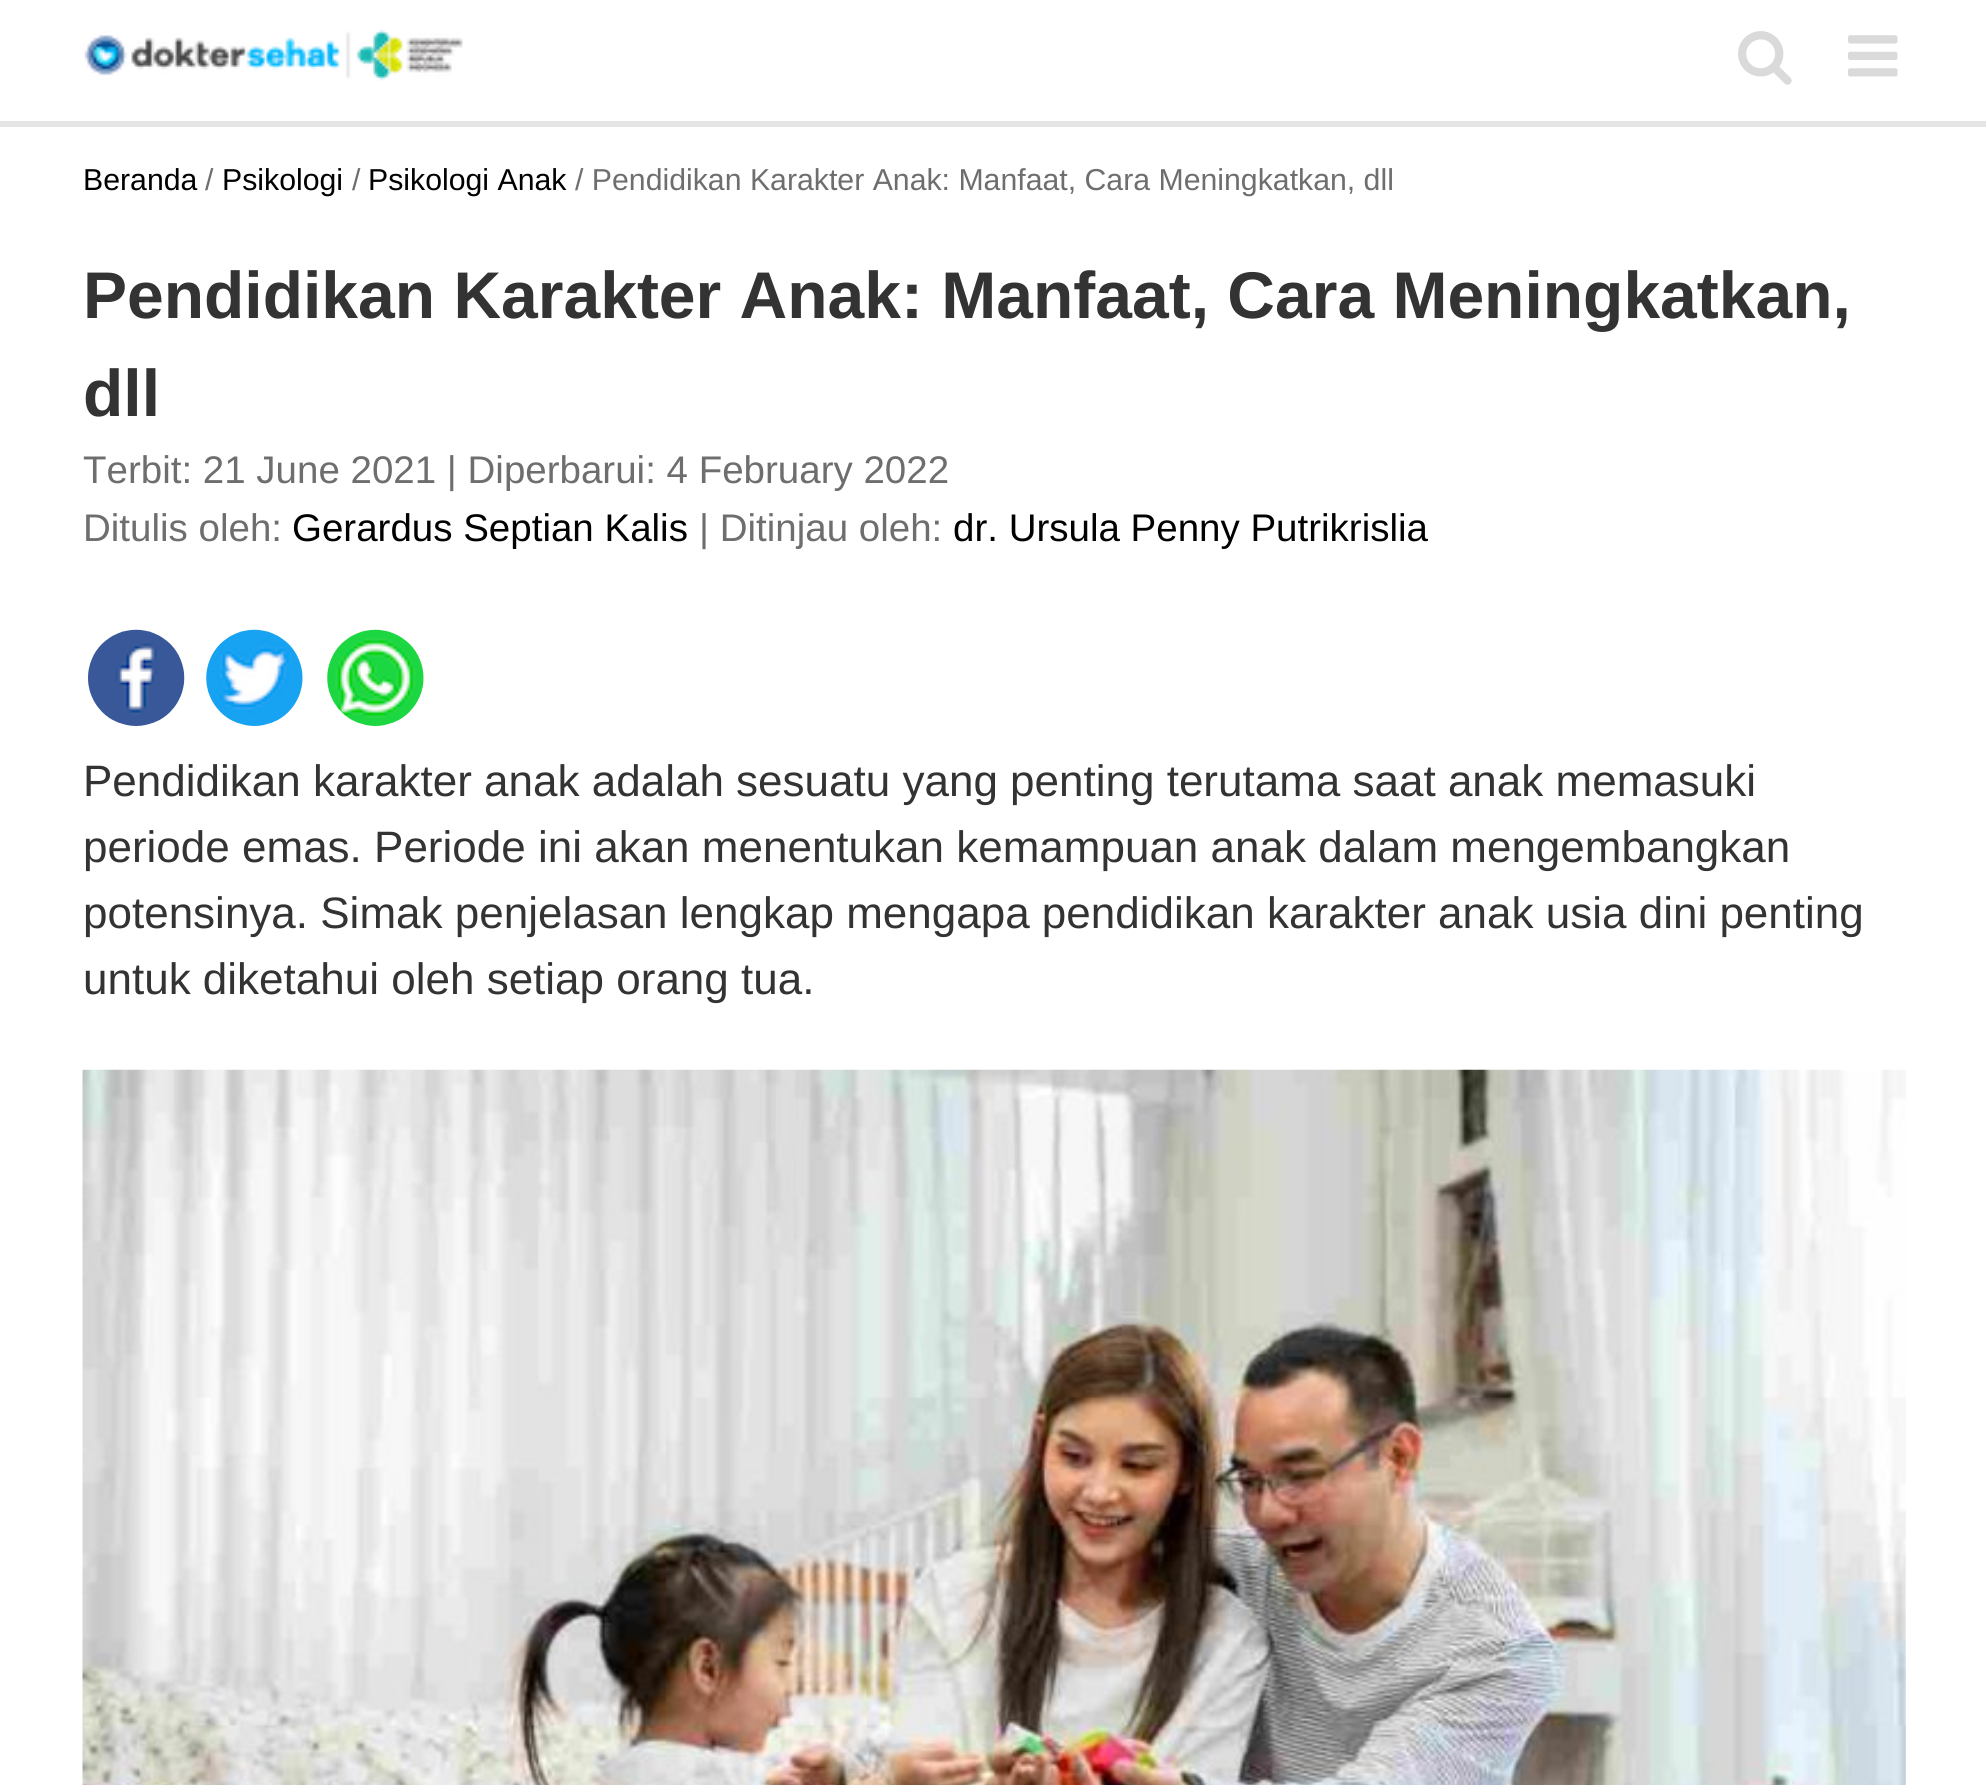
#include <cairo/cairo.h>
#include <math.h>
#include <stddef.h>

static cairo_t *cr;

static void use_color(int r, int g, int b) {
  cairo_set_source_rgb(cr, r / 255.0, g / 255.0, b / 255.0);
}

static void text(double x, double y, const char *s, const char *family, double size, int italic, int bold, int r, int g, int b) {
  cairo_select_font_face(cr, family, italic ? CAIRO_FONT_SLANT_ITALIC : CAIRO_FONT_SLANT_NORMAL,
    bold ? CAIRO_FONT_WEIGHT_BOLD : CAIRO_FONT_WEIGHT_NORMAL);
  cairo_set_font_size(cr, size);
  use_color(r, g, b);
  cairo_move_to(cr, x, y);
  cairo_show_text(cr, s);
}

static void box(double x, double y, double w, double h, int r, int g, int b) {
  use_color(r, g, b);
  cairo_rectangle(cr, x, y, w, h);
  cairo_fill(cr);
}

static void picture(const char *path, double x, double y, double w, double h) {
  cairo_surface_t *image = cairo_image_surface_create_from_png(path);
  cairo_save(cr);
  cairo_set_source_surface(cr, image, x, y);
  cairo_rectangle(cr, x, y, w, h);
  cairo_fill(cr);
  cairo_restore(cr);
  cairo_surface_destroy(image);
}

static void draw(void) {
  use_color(255, 255, 255);
  cairo_paint(cr);
  box(0, 121, 1986, 6, 229, 229, 229);
  picture("img_01.png", 84, 29, 379, 52);
  picture("img_02.png", 1738, 31, 54, 54);
  picture("img_03.png", 1848, 35, 50, 42);
  picture("img_04.png", 88, 629, 97, 97);
  picture("img_05.png", 206, 629, 97, 97);
  picture("img_06.png", 327, 629, 97, 97);
  picture("img_07.png", 82, 1069, 1824, 716);
  text(83, 190, "Beranda", "Liberation Sans", 30.25, 0, 0, 0, 0, 0);
  text(205, 190, "/", "Liberation Sans", 30.25, 0, 0, 110, 110, 110);
  text(222, 190, "Psikologi", "Liberation Sans", 30.25, 0, 0, 0, 0, 0);
  text(352, 190, "/", "Liberation Sans", 30.25, 0, 0, 110, 110, 110);
  text(368, 190, "Psikologi Anak", "Liberation Sans", 30.25, 0, 0, 0, 0, 0);
  text(575, 190, "/ Pendidikan Karakter Anak: Manfaat, Cara Meningkatkan, dll", "Liberation Sans", 30.25, 0, 0, 110, 110, 110);
  text(83, 318, "Pendidikan Karakter Anak: Manfaat, Cara Meningkatkan,", "Liberation Sans", 66, 0, 1, 51, 51, 51);
  text(83, 416, "dll", "Liberation Sans", 66, 0, 1, 51, 51, 51);
  text(83, 483, "Terbit: 21 June 2021 | Diperbarui: 4 February 2022", "Liberation Sans", 38.5, 0, 0, 110, 110, 110);
  text(83, 541, "Ditulis oleh:", "Liberation Sans", 38.5, 0, 0, 110, 110, 110);
  text(292, 541, "Gerardus Septian Kalis", "Liberation Sans", 38.5, 0, 0, 0, 0, 0);
  text(699, 541, "| Ditinjau oleh:", "Liberation Sans", 38.5, 0, 0, 110, 110, 110);
  text(953, 541, "dr. Ursula Penny Putrikrislia", "Liberation Sans", 38.5, 0, 0, 0, 0, 0);
  text(83, 796, "Pendidikan karakter anak adalah sesuatu yang penting terutama saat anak memasuki", "Liberation Sans", 44, 0, 0, 51, 51, 51);
  text(83, 862, "periode emas. Periode ini akan menentukan kemampuan anak dalam mengembangkan", "Liberation Sans", 44, 0, 0, 51, 51, 51);
  text(83, 928, "potensinya. Simak penjelasan lengkap mengapa pendidikan karakter anak usia dini penting", "Liberation Sans", 44, 0, 0, 51, 51, 51);
  text(83, 994, "untuk diketahui oleh setiap orang tua.", "Liberation Sans", 44, 0, 0, 51, 51, 51);
}

int main(void) {
  cairo_surface_t *surface = cairo_image_surface_create(CAIRO_FORMAT_RGB24, 1986, 1785);
  cr = cairo_create(surface);
  cairo_font_options_t *options = cairo_font_options_create();
  cairo_font_options_set_hint_metrics(options, CAIRO_HINT_METRICS_OFF);
  cairo_font_options_set_hint_style(options, CAIRO_HINT_STYLE_NONE);
  cairo_set_font_options(cr, options);
  cairo_set_miter_limit(cr, 4);
  draw();
  cairo_surface_write_to_png(surface, "out.png");
  cairo_font_options_destroy(options);
  cairo_destroy(cr);
  cairo_surface_destroy(surface);
  return 0;
}
